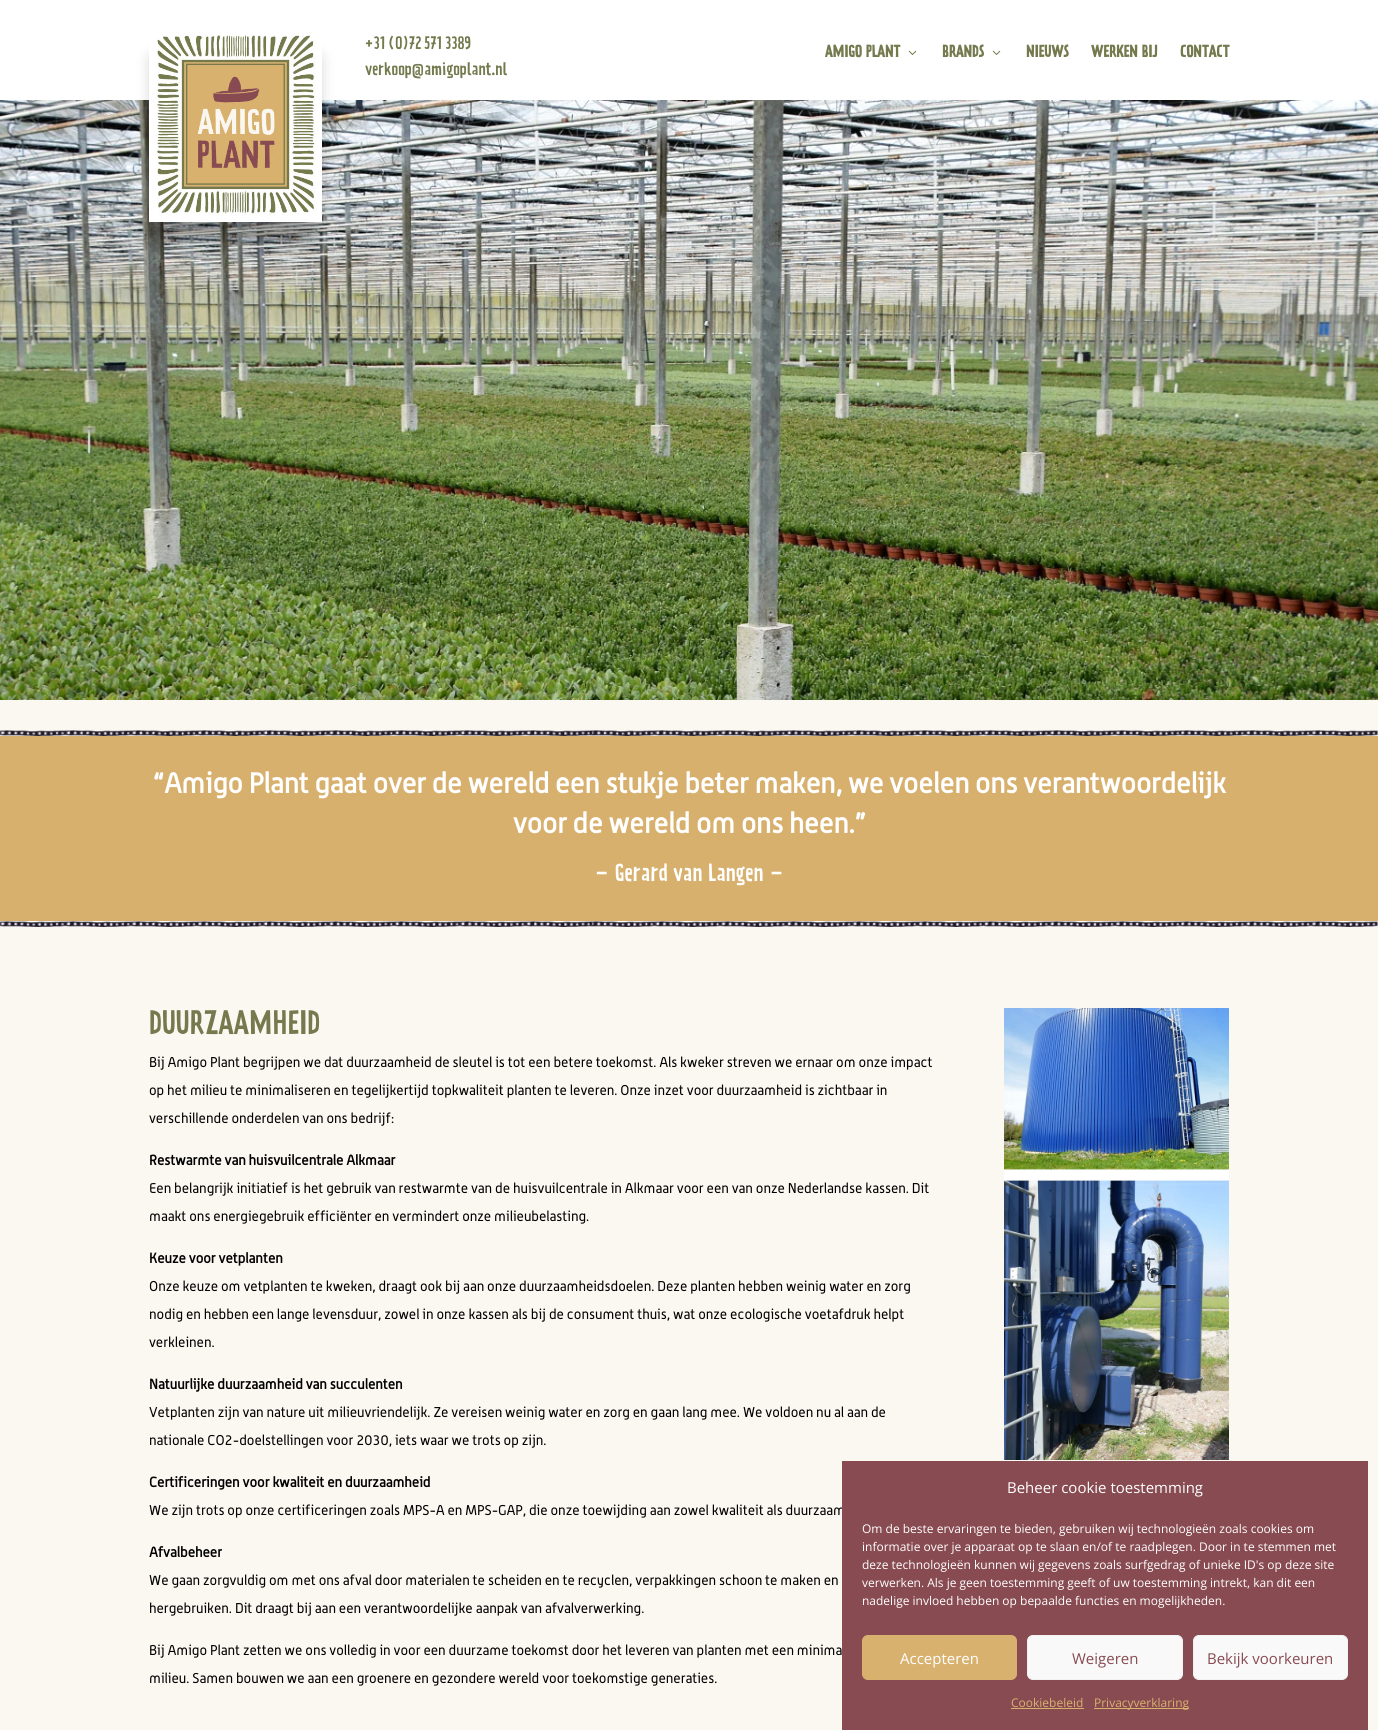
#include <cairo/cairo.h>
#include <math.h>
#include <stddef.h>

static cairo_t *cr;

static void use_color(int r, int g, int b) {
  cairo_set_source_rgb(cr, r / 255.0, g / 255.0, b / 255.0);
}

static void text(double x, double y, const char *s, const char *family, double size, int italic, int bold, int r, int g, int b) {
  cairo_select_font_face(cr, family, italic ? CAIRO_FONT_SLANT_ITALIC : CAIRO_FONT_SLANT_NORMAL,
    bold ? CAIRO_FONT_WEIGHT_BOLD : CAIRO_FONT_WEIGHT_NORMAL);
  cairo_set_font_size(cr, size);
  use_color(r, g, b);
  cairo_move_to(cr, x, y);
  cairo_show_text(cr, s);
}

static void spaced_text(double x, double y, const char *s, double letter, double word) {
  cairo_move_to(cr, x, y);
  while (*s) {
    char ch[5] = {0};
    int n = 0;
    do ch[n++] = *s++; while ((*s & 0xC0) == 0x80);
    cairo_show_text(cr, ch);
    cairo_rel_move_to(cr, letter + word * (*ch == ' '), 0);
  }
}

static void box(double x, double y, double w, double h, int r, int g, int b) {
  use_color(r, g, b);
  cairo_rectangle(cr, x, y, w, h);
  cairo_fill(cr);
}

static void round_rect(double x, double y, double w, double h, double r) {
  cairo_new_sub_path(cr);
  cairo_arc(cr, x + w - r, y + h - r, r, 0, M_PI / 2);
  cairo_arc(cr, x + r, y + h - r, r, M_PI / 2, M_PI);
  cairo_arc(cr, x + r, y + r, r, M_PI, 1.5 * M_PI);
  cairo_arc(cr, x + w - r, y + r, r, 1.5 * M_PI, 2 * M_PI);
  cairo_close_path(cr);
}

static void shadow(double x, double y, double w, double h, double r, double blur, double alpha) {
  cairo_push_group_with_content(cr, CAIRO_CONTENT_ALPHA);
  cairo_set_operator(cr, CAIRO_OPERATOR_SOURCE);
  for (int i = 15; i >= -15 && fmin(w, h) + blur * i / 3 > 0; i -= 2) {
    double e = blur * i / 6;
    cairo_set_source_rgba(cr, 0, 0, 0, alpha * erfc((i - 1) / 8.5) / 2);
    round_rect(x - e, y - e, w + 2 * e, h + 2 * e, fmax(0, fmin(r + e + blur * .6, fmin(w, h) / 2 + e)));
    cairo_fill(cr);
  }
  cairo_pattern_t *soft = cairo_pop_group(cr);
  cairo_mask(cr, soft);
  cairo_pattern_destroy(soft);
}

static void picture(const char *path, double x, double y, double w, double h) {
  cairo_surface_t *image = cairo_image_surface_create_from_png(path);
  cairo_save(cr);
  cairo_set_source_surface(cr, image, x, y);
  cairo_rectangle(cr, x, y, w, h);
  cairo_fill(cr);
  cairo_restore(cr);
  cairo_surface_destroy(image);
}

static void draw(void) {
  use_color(251, 247, 241);
  cairo_paint(cr);
  box(0, 0, 1378, 100, 255, 255, 255);
  picture("img_03.png", 0, 100, 1378, 600);
  use_color(0, 0, 0);
  shadow(155, 59, 161, 183, 0, 9, 0.3);
  picture("img_01.png", 149, 35, 173, 187);
  picture("img_02.png", 908, 50, 9, 5);
  picture("img_02.png", 992, 50, 9, 5);
  picture("img_04.png", 0, 730, 1378, 6);
  box(0, 736, 1378, 185, 216, 176, 110);
  box(0, 921, 1378, 6, 255, 255, 255);
  picture("img_05.png", 0, 921, 1378, 6);
  picture("img_06.png", 1004, 1008, 225, 452);
  cairo_select_font_face(cr, "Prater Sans", CAIRO_FONT_SLANT_NORMAL, CAIRO_FONT_WEIGHT_NORMAL);
  cairo_set_font_size(cr, 16);
  use_color(116, 122, 77);
  spaced_text(365, 49, "+31 (0)72 571 3389", 0, -1);
  text(365, 75, "verkoop@amigoplant.nl", "Prater Sans", 16, 0, 0, 116, 122, 77);
  text(825, 57, "AMIGO PLANT", "Prater Sans", 15, 0, 1, 116, 122, 77);
  text(942, 57, "BRANDS", "Prater Sans", 15, 0, 1, 116, 122, 77);
  text(1026, 57, "NIEUWS", "Prater Sans", 15, 0, 1, 116, 122, 77);
  text(1091, 57, "WERKEN BIJ", "Prater Sans", 15, 0, 1, 116, 122, 77);
  text(1180, 57, "CONTACT", "Prater Sans", 15, 0, 1, 116, 122, 77);
  text(153, 793, "“Amigo Plant gaat over de wereld een stukje beter maken, we voelen ons verantwoordelijk", "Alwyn", 28, 0, 1, 255, 255, 255);
  text(513, 833, "voor de wereld om ons heen.”", "Alwyn", 28, 0, 1, 255, 255, 255);
  text(594, 881, "– Gerard van Langen –", "Prater Sans", 22, 0, 0, 255, 255, 255);
  text(149, 1034, "DUURZAAMHEID", "Prater Sans", 30, 0, 0, 116, 122, 77);
  text(149, 1067, "Bij Amigo Plant begrijpen we dat duurzaamheid de sleutel is tot een betere toekomst. Als kweker streven we ernaar om onze impact", "Alwyn", 14, 0, 0, 0, 0, 0);
  text(149, 1095, "op het milieu te minimaliseren en tegelijkertijd topkwaliteit planten te leveren. Onze inzet voor duurzaamheid is zichtbaar in", "Alwyn", 14, 0, 0, 0, 0, 0);
  text(149, 1123, "verschillende onderdelen van ons bedrijf:", "Alwyn", 14, 0, 0, 0, 0, 0);
  text(149, 1165, "Restwarmte van huisvuilcentrale Alkmaar", "Alwyn", 14, 0, 1, 0, 0, 0);
  text(149, 1193, "Een belangrijk initiatief is het gebruik van restwarmte van de huisvuilcentrale in Alkmaar voor een van onze Nederlandse kassen. Dit", "Alwyn", 14, 0, 0, 0, 0, 0);
  text(149, 1221, "maakt ons energiegebruik efficiënter en vermindert onze milieubelasting.", "Alwyn", 14, 0, 0, 0, 0, 0);
  text(149, 1263, "Keuze voor vetplanten", "Alwyn", 14, 0, 1, 0, 0, 0);
  text(149, 1291, "Onze keuze om vetplanten te kweken, draagt ook bij aan onze duurzaamheidsdoelen. Deze planten hebben weinig water en zorg", "Alwyn", 14, 0, 0, 0, 0, 0);
  text(149, 1319, "nodig en hebben een lange levensduur, zowel in onze kassen als bij de consument thuis, wat onze ecologische voetafdruk helpt", "Alwyn", 14, 0, 0, 0, 0, 0);
  text(149, 1347, "verkleinen.", "Alwyn", 14, 0, 0, 0, 0, 0);
  text(149, 1389, "Natuurlijke duurzaamheid van succulenten", "Alwyn", 14, 0, 1, 0, 0, 0);
  text(149, 1417, "Vetplanten zijn van nature uit milieuvriendelijk. Ze vereisen weinig water en zorg en gaan lang mee. We voldoen nu al aan de", "Alwyn", 14, 0, 0, 0, 0, 0);
  text(149, 1445, "nationale CO2-doelstellingen voor 2030, iets waar we trots op zijn.", "Alwyn", 14, 0, 0, 0, 0, 0);
  text(149, 1487, "Certificeringen voor kwaliteit en duurzaamheid", "Alwyn", 14, 0, 1, 0, 0, 0);
  text(149, 1515, "We zijn trots op onze certificeringen zoals MPS-A en MPS-GAP, die onze toewijding aan zowel kwaliteit als duurzaam", "Alwyn", 14, 0, 0, 0, 0, 0);
  text(149, 1557, "Afvalbeheer", "Alwyn", 14, 0, 1, 0, 0, 0);
  text(149, 1585, "We gaan zorgvuldig om met ons afval door materialen te scheiden en te recyclen, verpakkingen schoon te maken en", "Alwyn", 14, 0, 0, 0, 0, 0);
  text(149, 1613, "hergebruiken. Dit draagt bij aan een verantwoordelijke aanpak van afvalverwerking.", "Alwyn", 14, 0, 0, 0, 0, 0);
  text(149, 1655, "Bij Amigo Plant zetten we ons volledig in voor een duurzame toekomst door het leveren van planten met een minima", "Alwyn", 14, 0, 0, 0, 0, 0);
  text(149, 1683, "milieu. Samen bouwen we aan een groenere en gezondere wereld voor toekomstige generaties.", "Alwyn", 14, 0, 0, 0, 0, 0);
  box(842, 1461, 526, 269, 136, 75, 82);
  text(1007, 1493, "Beheer cookie toestemming", "Open Sans", 15, 0, 0, 255, 255, 255);
  text(862, 1533, "Om de beste ervaringen te bieden, gebruiken wij technologieën zoals cookies om", "Open Sans", 12, 0, 0, 255, 255, 255);
  text(862, 1551, "informatie over je apparaat op te slaan en/of te raadplegen. Door in te stemmen met", "Open Sans", 12, 0, 0, 255, 255, 255);
  text(862, 1569, "deze technologieën kunnen wij gegevens zoals surfgedrag of unieke ID's op deze site", "Open Sans", 12, 0, 0, 255, 255, 255);
  text(862, 1587, "verwerken. Als je geen toestemming geeft of uw toestemming intrekt, kan dit een", "Open Sans", 12, 0, 0, 255, 255, 255);
  text(862, 1605, "nadelige invloed hebben op bepaalde functies en mogelijkheden.", "Open Sans", 12, 0, 0, 255, 255, 255);
  use_color(217, 177, 110);
  round_rect(862.5, 1635.5, 154, 44, 5.5);
  cairo_fill_preserve(cr);
  cairo_set_line_width(cr, 1);
  cairo_stroke(cr);
  text(900, 1664, "Accepteren", "Open Sans", 15, 0, 0, 255, 255, 255);
  use_color(249, 249, 249);
  round_rect(1027.5, 1635.5, 155, 44, 5.5);
  cairo_fill_preserve(cr);
  use_color(242, 242, 242);
  cairo_stroke(cr);
  text(1072, 1664, "Weigeren", "Open Sans", 15, 0, 0, 136, 75, 82);
  use_color(249, 249, 249);
  round_rect(1193.5, 1635.5, 154, 44, 5.5);
  cairo_fill_preserve(cr);
  use_color(242, 242, 242);
  cairo_stroke(cr);
  text(1207, 1664, "Bekijk voorkeuren", "Open Sans", 15, 0, 0, 136, 75, 82);
  text(1011, 1707, "Cookiebeleid", "Open Sans", 12, 0, 0, 217, 177, 110);
  box(1011, 1708, 73, 1, 217, 177, 110);
  box(1094, 1708, 95, 1, 217, 177, 110);
  text(1094, 1707, "Privacyverklaring", "Open Sans", 12, 0, 0, 217, 177, 110);
}

int main(void) {
  cairo_surface_t *surface = cairo_image_surface_create(CAIRO_FORMAT_RGB24, 1378, 1730);
  cr = cairo_create(surface);
  cairo_font_options_t *options = cairo_font_options_create();
  cairo_font_options_set_hint_metrics(options, CAIRO_HINT_METRICS_OFF);
  cairo_font_options_set_hint_style(options, CAIRO_HINT_STYLE_NONE);
  cairo_set_font_options(cr, options);
  cairo_set_miter_limit(cr, 4);
  draw();
  cairo_surface_write_to_png(surface, "out.png");
  cairo_font_options_destroy(options);
  cairo_destroy(cr);
  cairo_surface_destroy(surface);
  return 0;
}
